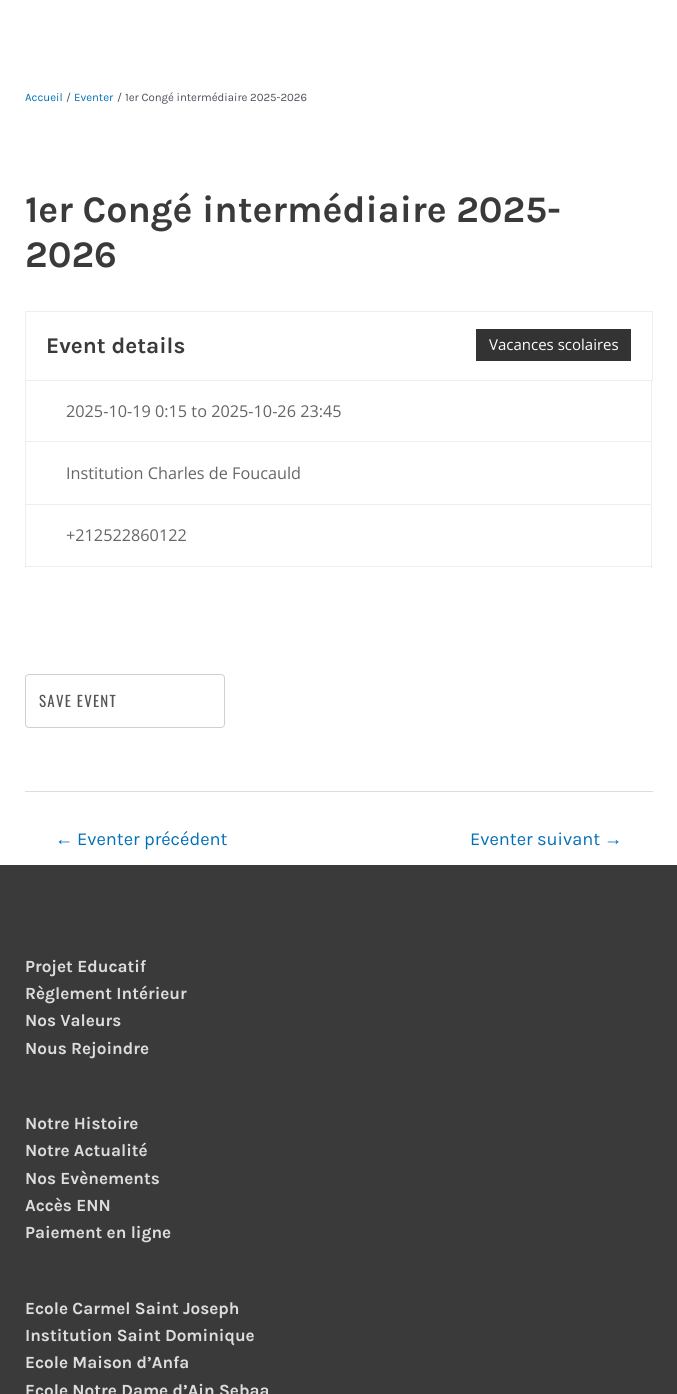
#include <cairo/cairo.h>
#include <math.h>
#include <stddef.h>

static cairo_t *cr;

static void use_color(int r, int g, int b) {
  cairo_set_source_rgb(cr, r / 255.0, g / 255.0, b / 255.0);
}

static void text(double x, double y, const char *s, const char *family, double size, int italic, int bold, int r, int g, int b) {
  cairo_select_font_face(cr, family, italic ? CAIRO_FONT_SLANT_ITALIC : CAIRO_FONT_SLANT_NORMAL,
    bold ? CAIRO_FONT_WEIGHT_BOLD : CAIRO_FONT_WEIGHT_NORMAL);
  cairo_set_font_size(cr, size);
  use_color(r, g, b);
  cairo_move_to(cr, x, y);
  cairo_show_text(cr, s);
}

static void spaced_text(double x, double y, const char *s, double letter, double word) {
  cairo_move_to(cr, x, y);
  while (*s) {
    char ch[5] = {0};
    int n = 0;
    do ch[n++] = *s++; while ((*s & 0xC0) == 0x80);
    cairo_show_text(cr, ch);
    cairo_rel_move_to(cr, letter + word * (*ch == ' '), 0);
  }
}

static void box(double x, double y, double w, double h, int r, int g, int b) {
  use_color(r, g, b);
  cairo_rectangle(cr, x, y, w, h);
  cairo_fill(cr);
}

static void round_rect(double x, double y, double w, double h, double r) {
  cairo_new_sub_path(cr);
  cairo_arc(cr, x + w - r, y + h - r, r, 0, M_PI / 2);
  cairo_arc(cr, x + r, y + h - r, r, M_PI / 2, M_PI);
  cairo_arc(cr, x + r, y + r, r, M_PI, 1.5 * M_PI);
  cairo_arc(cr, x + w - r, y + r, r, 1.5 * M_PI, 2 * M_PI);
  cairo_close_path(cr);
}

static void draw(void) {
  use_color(255, 255, 255);
  cairo_paint(cr);
  cairo_rectangle(cr, 25.5, 311.5, 627, 69);
  use_color(238, 238, 238);
  cairo_set_line_width(cr, 1);
  cairo_stroke(cr);
  box(476, 329, 155, 32, 51, 51, 51);
  box(651, 381, 1, 187, 238, 238, 238);
  box(25, 566, 628, 1, 238, 238, 238);
  box(25, 381, 1, 187, 238, 238, 238);
  box(26, 441, 625, 1, 238, 238, 238);
  box(26, 504, 625, 1, 238, 238, 238);
  round_rect(25.5, 674.5, 199, 53, 3.5);
  use_color(208, 208, 208);
  cairo_stroke(cr);
  box(25, 791, 628, 1, 221, 221, 221);
  box(0, 865, 677, 529, 58, 58, 58);
  text(25, 101, "Accueil", "Karla", 11.4, 0, 0, 1, 112, 185);
  text(66, 101, "/", "Karla", 11.4, 0, 0, 75, 79, 88);
  text(74, 101, "Eventer", "Karla", 11.4, 0, 0, 1, 112, 185);
  text(117, 101, "/", "Karla", 11.4, 0, 0, 75, 79, 88);
  text(125, 101, "1er Congé intermédiaire 2025-2026", "Karla", 11.4, 0, 0, 75, 79, 88);
  text(25, 222, "1er Congé intermédiaire 2025-", "Karla", 37.5, 0, 1, 58, 58, 58);
  text(25, 267, "2026", "Karla", 37.5, 0, 1, 58, 58, 58);
  text(46, 353, "Event details", "Karla", 22.5, 0, 1, 58, 58, 58);
  text(489, 350, "Vacances scolaires", "Open Sans", 15, 0, 0, 255, 255, 255);
  text(66, 417, "2025-10-19 0:15 to 2025-10-26 23:45", "Open Sans", 16.25, 0, 0, 102, 102, 102);
  text(66, 479, "Institution Charles de Foucauld", "Open Sans", 16.25, 0, 0, 102, 102, 102);
  text(66, 541, "+212522860122", "Open Sans", 16.25, 0, 0, 102, 102, 102);
  cairo_select_font_face(cr, "Oswald", CAIRO_FONT_SLANT_NORMAL, CAIRO_FONT_WEIGHT_NORMAL);
  cairo_set_font_size(cr, 15);
  use_color(85, 85, 85);
  spaced_text(39, 707, "SAVE EVENT", 1.25, 0);
  text(55, 845, "←", "Liberation Serif", 18.25, 0, 0, 1, 112, 185);
  text(77, 845, "Eventer précédent", "Karla", 18.25, 0, 0, 1, 112, 185);
  text(470, 845, "Eventer suivant", "Karla", 18.25, 0, 0, 1, 112, 185);
  text(604, 845, "→", "Liberation Serif", 18.25, 0, 0, 1, 112, 185);
  text(25, 972, "Projet Educatif", "Karla", 17.1, 0, 1, 221, 221, 221);
  text(25, 999, "Règlement Intérieur", "Karla", 17.1, 0, 1, 221, 221, 221);
  text(25, 1026, "Nos Valeurs", "Karla", 17.1, 0, 1, 221, 221, 221);
  text(25, 1054, "Nous Rejoindre", "Karla", 17.1, 0, 1, 221, 221, 221);
  text(25, 1129, "Notre Histoire", "Karla", 17.1, 0, 1, 221, 221, 221);
  text(25, 1156, "Notre Actualité", "Karla", 17.1, 0, 1, 221, 221, 221);
  text(25, 1184, "Nos Evènements", "Karla", 17.1, 0, 1, 221, 221, 221);
  text(25, 1211, "Accès ENN", "Karla", 17.1, 0, 1, 221, 221, 221);
  text(25, 1238, "Paiement en ligne", "Karla", 17.1, 0, 1, 221, 221, 221);
  text(25, 1314, "Ecole Carmel Saint Joseph", "Karla", 17.1, 0, 1, 221, 221, 221);
  text(25, 1341, "Institution Saint Dominique", "Karla", 17.1, 0, 1, 221, 221, 221);
  text(25, 1368, "Ecole Maison d’Anfa", "Karla", 17.1, 0, 1, 221, 221, 221);
  text(25, 1396, "Ecole Notre Dame d’Ain Sebaa", "Karla", 17.1, 0, 1, 221, 221, 221);
}

int main(void) {
  cairo_surface_t *surface = cairo_image_surface_create(CAIRO_FORMAT_RGB24, 677, 1394);
  cr = cairo_create(surface);
  cairo_font_options_t *options = cairo_font_options_create();
  cairo_font_options_set_hint_metrics(options, CAIRO_HINT_METRICS_OFF);
  cairo_font_options_set_hint_style(options, CAIRO_HINT_STYLE_NONE);
  cairo_set_font_options(cr, options);
  cairo_set_miter_limit(cr, 4);
  draw();
  cairo_surface_write_to_png(surface, "out.png");
  cairo_font_options_destroy(options);
  cairo_destroy(cr);
  cairo_surface_destroy(surface);
  return 0;
}
